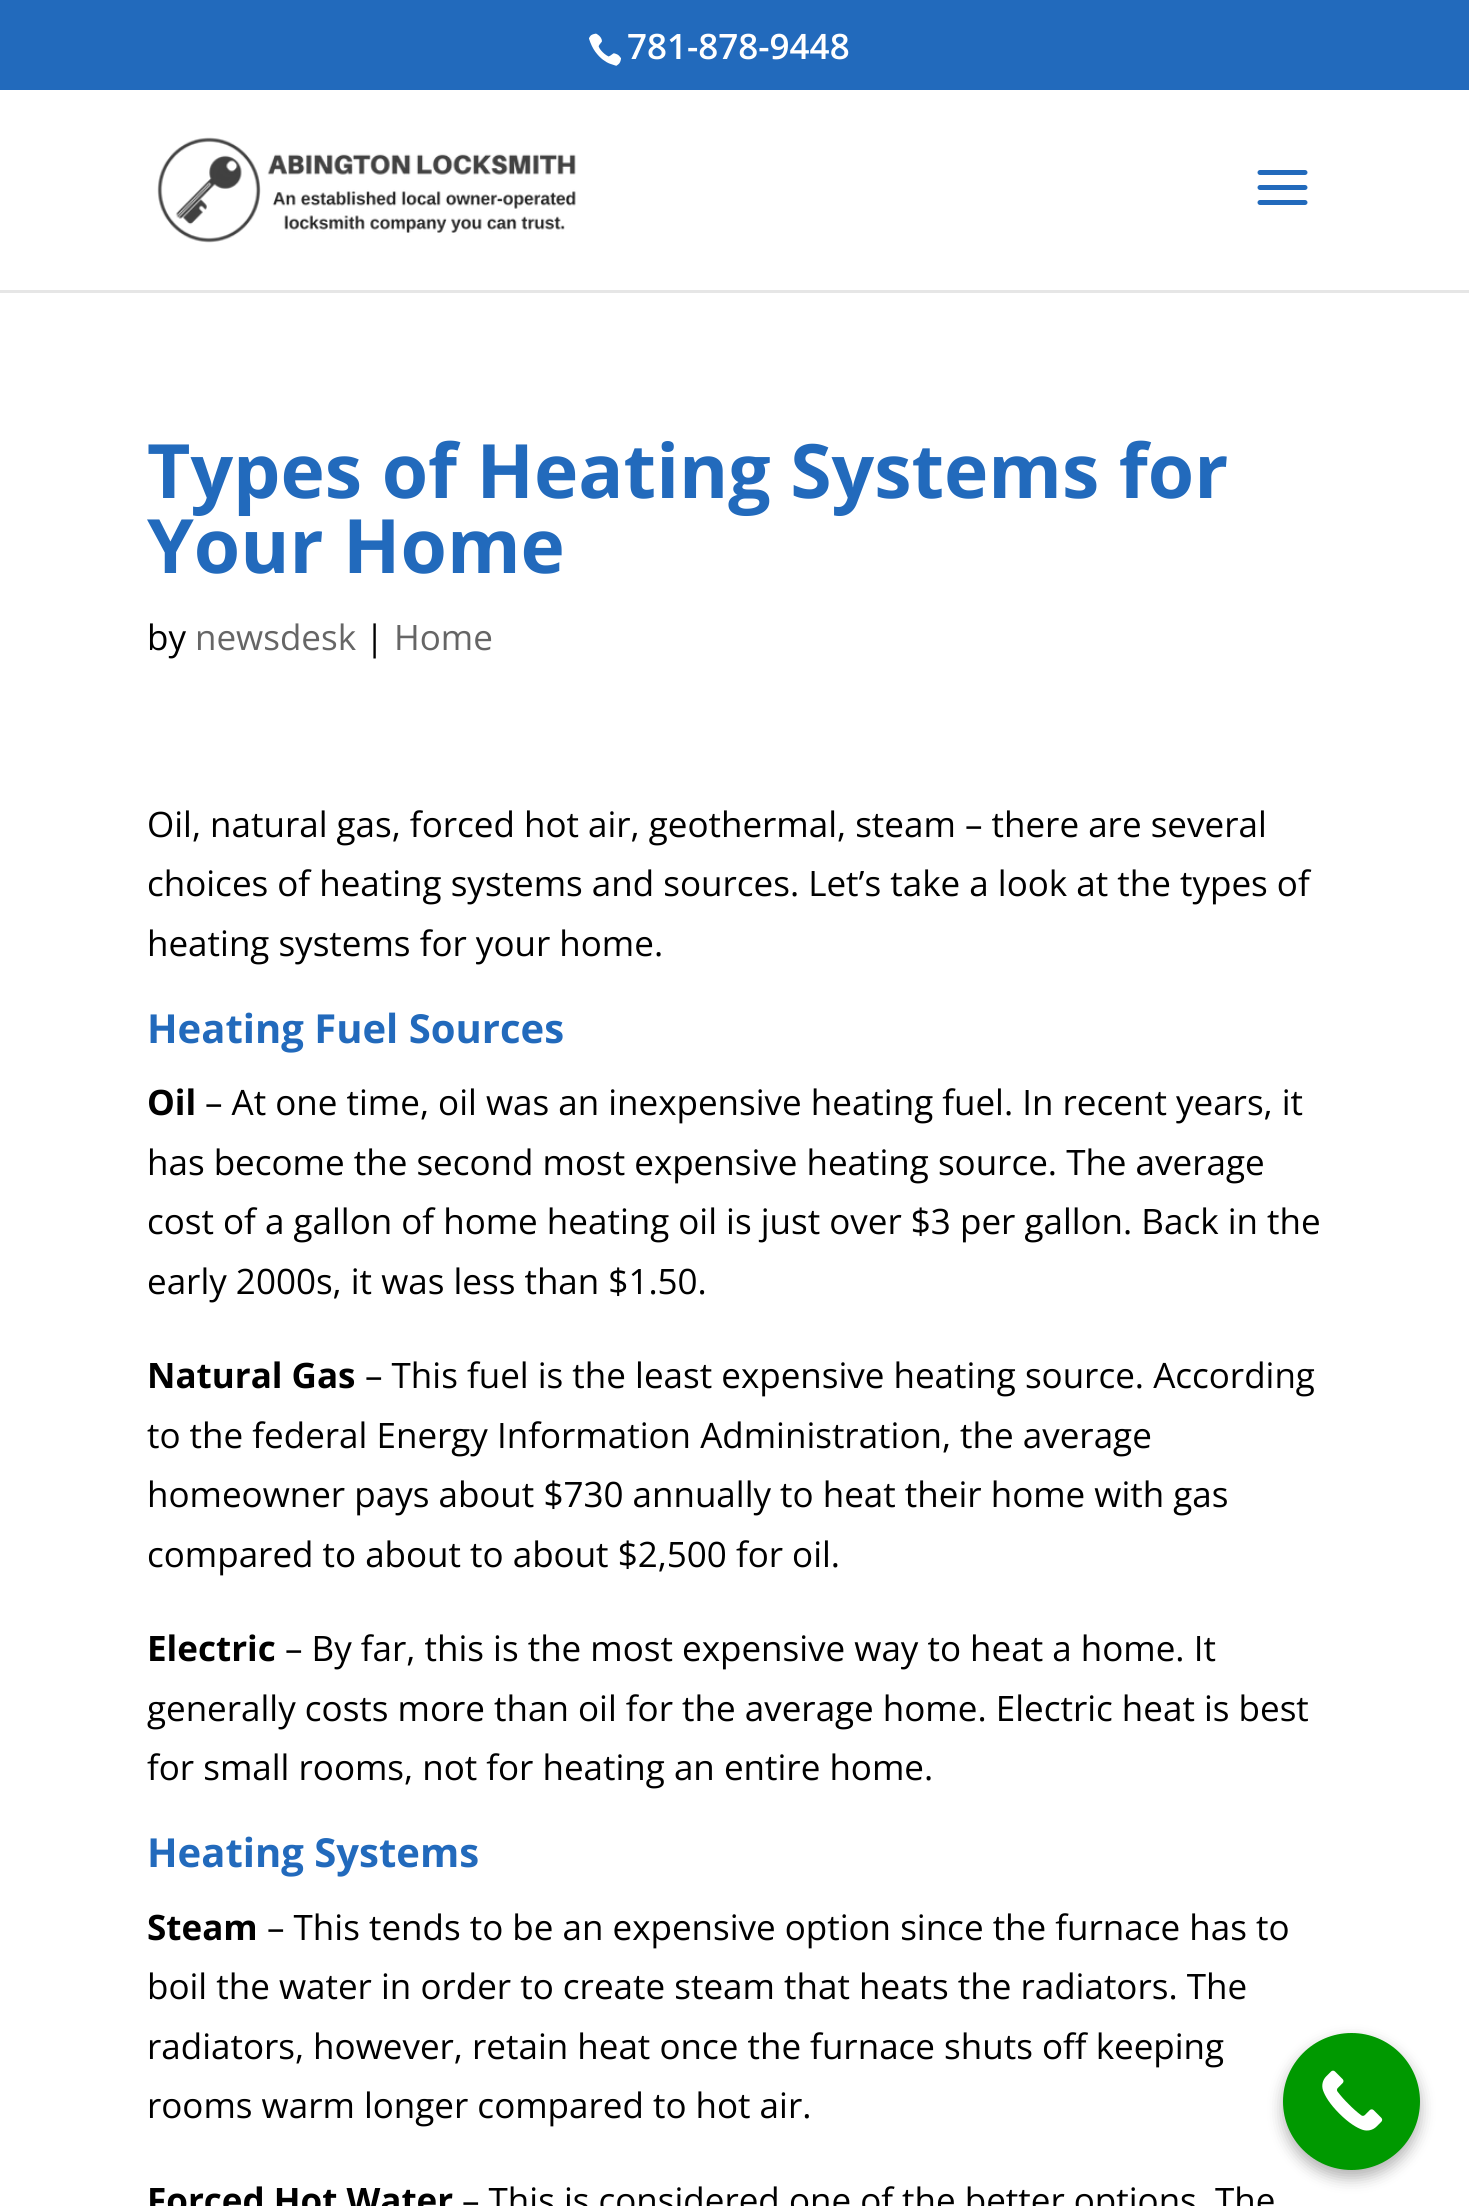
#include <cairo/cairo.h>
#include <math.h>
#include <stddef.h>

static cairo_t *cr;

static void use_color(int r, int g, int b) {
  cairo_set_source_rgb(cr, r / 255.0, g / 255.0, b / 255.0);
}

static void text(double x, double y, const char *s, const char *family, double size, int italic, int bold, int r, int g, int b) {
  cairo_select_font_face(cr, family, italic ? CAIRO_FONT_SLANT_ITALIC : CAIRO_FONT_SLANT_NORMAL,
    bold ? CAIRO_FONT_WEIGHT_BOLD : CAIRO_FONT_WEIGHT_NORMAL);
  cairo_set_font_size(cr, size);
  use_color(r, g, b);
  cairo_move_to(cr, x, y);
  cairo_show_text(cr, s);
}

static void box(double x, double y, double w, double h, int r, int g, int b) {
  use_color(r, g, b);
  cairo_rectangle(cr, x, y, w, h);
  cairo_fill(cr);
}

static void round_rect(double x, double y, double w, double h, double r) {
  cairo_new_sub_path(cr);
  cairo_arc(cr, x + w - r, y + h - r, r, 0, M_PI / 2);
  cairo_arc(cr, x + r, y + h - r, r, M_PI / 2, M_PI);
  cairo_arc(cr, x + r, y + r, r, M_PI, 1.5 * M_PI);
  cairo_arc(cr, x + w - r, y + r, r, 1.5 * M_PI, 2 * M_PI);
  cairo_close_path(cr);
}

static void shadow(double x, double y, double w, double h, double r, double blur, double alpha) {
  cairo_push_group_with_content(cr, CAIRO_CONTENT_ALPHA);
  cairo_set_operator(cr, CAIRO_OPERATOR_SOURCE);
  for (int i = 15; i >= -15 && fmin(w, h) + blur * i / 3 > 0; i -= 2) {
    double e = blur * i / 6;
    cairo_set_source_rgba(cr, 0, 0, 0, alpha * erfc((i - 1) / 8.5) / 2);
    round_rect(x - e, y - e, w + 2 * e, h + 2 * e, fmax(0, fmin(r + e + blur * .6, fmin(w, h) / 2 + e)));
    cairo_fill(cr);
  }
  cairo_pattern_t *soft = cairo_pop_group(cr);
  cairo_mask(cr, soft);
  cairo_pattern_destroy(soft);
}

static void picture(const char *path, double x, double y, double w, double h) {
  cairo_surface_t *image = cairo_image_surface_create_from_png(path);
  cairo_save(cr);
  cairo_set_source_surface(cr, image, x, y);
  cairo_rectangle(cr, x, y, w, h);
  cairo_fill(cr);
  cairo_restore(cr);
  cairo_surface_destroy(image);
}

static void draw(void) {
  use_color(255, 255, 255);
  cairo_paint(cr);
  box(0, 0, 1469, 90, 34, 106, 188);
  picture("img_01.png", 589, 33, 32, 33);
  box(0, 290, 1469, 3, 230, 230, 230);
  picture("img_02.png", 157, 137, 419, 106);
  picture("img_03.png", 1257, 170, 51, 35);
  use_color(0, 0, 0);
  shadow(1283, 2040, 137, 138, 68.5, 7.5, 0.3);
  use_color(0, 153, 0);
  cairo_arc(cr, 1351.5, 2101.5, 68.5, 0, 2 * M_PI);
  cairo_fill(cr);
  picture("img_04.png", 1322, 2070, 61, 61);
  text(627, 59, "781-878-9448", "Open Sans SemiBold", 35, 0, 0, 255, 255, 255);
  text(147, 498, "Types of Heating Systems for", "Open Sans", 75, 0, 1, 34, 106, 188);
  text(147, 573, "Your Home", "Open Sans", 75, 0, 1, 34, 106, 188);
  text(147, 650, "by", "Open Sans", 35, 0, 0, 0, 0, 0);
  text(195, 650, "newsdesk", "Open Sans", 35, 0, 0, 102, 102, 102);
  text(365, 650, "|", "Open Sans", 35, 0, 0, 0, 0, 0);
  text(394, 650, "Home", "Open Sans", 35, 0, 0, 102, 102, 102);
  text(147, 837, "Oil, natural gas, forced hot air, geothermal, steam – there are several", "Open Sans", 35, 0, 0, 0, 0, 0);
  text(147, 896, "choices of heating systems and sources. Let’s take a look at the types of", "Open Sans", 35, 0, 0, 0, 0, 0);
  text(147, 956, "heating systems for your home.", "Open Sans", 35, 0, 0, 0, 0, 0);
  text(147, 1043, "Heating Fuel Sources", "Open Sans", 40, 0, 1, 34, 106, 188);
  text(147, 1115, "Oil", "Open Sans", 35, 0, 1, 0, 0, 0);
  text(205, 1115, "– At one time, oil was an inexpensive heating fuel. In recent years, it", "Open Sans", 35, 0, 0, 0, 0, 0);
  text(147, 1175, "has become the second most expensive heating source. The average", "Open Sans", 35, 0, 0, 0, 0, 0);
  text(147, 1234, "cost of a gallon of home heating oil is just over $3 per gallon. Back in the", "Open Sans", 35, 0, 0, 0, 0, 0);
  text(147, 1294, "early 2000s, it was less than $1.50.", "Open Sans", 35, 0, 0, 0, 0, 0);
  text(147, 1388, "Natural Gas", "Open Sans", 35, 0, 1, 0, 0, 0);
  text(365, 1388, "– This fuel is the least expensive heating source. According", "Open Sans", 35, 0, 0, 0, 0, 0);
  text(147, 1448, "to the federal Energy Information Administration, the average", "Open Sans", 35, 0, 0, 0, 0, 0);
  text(147, 1507, "homeowner pays about $730 annually to heat their home with gas", "Open Sans", 35, 0, 0, 0, 0, 0);
  text(147, 1567, "compared to about to about $2,500 for oil.", "Open Sans", 35, 0, 0, 0, 0, 0);
  text(147, 1661, "Electric", "Open Sans", 35, 0, 1, 0, 0, 0);
  text(285, 1661, "– By far, this is the most expensive way to heat a home. It", "Open Sans", 35, 0, 0, 0, 0, 0);
  text(147, 1721, "generally costs more than oil for the average home. Electric heat is best", "Open Sans", 35, 0, 0, 0, 0, 0);
  text(147, 1780, "for small rooms, not for heating an entire home.", "Open Sans", 35, 0, 0, 0, 0, 0);
  text(147, 1867, "Heating Systems", "Open Sans", 40, 0, 1, 34, 106, 188);
  text(147, 1940, "Steam", "Open Sans", 35, 0, 1, 0, 0, 0);
  text(267, 1940, "– This tends to be an expensive option since the furnace has to", "Open Sans", 35, 0, 0, 0, 0, 0);
  text(147, 1999, "boil the water in order to create steam that heats the radiators. The", "Open Sans", 35, 0, 0, 0, 0, 0);
  text(147, 2059, "radiators, however, retain heat once the furnace shuts off keeping", "Open Sans", 35, 0, 0, 0, 0, 0);
  text(147, 2118, "rooms warm longer compared to hot air.", "Open Sans", 35, 0, 0, 0, 0, 0);
  text(147, 2213, "Forced Hot Water", "Open Sans", 35, 0, 1, 0, 0, 0);
  text(462, 2213, "– This is considered one of the better options. The", "Open Sans", 35, 0, 0, 0, 0, 0);
}

int main(void) {
  cairo_surface_t *surface = cairo_image_surface_create(CAIRO_FORMAT_RGB24, 1469, 2206);
  cr = cairo_create(surface);
  cairo_font_options_t *options = cairo_font_options_create();
  cairo_font_options_set_hint_metrics(options, CAIRO_HINT_METRICS_OFF);
  cairo_font_options_set_hint_style(options, CAIRO_HINT_STYLE_NONE);
  cairo_set_font_options(cr, options);
  cairo_set_miter_limit(cr, 4);
  draw();
  cairo_surface_write_to_png(surface, "out.png");
  cairo_font_options_destroy(options);
  cairo_destroy(cr);
  cairo_surface_destroy(surface);
  return 0;
}
